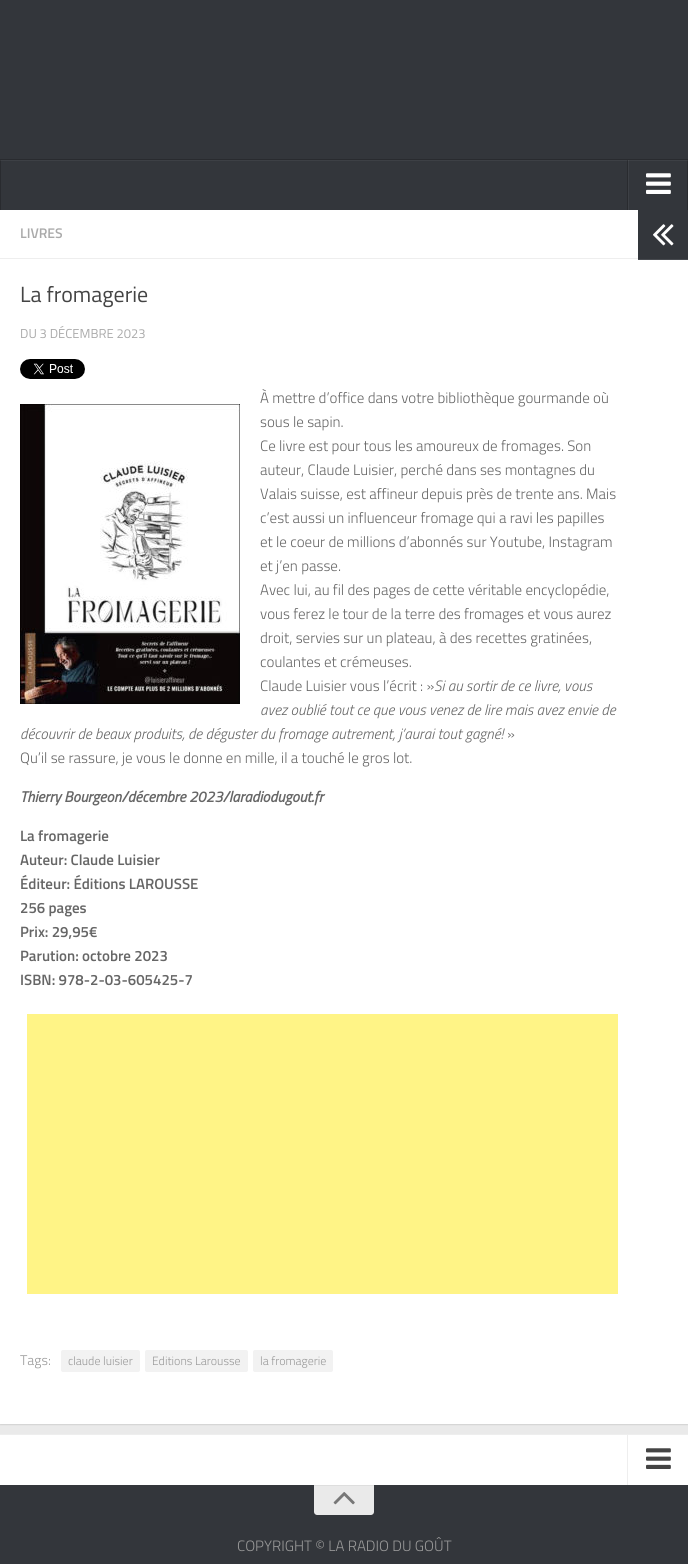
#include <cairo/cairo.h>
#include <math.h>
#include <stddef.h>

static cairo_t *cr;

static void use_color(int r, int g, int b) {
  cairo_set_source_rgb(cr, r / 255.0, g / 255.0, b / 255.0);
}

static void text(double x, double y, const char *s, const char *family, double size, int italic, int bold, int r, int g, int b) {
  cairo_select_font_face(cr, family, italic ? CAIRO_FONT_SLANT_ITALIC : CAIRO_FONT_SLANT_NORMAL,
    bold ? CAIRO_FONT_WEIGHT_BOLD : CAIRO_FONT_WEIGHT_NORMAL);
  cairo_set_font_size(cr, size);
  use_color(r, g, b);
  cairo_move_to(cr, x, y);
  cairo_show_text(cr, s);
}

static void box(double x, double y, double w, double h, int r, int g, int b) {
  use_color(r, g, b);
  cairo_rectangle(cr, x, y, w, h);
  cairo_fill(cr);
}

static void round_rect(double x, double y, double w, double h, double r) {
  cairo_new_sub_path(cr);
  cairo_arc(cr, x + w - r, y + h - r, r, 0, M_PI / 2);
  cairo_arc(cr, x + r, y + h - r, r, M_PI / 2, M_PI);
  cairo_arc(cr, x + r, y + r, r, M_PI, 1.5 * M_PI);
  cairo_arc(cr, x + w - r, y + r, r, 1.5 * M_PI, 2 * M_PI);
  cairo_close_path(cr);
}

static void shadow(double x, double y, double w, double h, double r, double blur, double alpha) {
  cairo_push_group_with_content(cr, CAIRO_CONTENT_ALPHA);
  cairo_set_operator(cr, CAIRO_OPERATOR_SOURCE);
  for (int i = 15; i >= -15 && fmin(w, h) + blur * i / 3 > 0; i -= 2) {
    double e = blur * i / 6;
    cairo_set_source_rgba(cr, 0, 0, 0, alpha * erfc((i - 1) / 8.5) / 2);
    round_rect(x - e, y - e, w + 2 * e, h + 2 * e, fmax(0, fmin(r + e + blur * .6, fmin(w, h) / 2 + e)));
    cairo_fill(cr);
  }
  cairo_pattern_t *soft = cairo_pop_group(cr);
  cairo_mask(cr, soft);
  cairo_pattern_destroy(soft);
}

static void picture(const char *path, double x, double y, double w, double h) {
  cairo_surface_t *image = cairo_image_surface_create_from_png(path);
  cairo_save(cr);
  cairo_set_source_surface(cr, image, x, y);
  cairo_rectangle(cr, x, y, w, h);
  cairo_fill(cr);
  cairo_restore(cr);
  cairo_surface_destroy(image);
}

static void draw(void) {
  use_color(234, 234, 234);
  cairo_paint(cr);
  use_color(0, 0, 0);
  shadow(0, 211, 688, 1214, 0, 0.5, 0.1);
  box(0, 0, 688, 210, 51, 54, 59);
  box(628, 160, 1, 50, 61, 64, 69);
  box(627, 160, 1, 50, 41, 43, 47);
  box(0, 160, 688, 1, 61, 64, 69);
  box(628, 160, 1, 1, 71, 74, 78);
  box(627, 160, 1, 1, 49, 51, 55);
  box(0, 159, 688, 1, 41, 43, 47);
  box(687, 160, 1, 50, 41, 43, 47);
  box(687, 160, 1, 1, 52, 54, 57);
  box(0, 160, 1, 50, 41, 43, 47);
  box(0, 160, 1, 1, 52, 54, 57);
  picture("img_01.png", 646, 173, 25, 21);
  box(0, 210, 688, 1214, 255, 255, 255);
  box(0, 258, 638, 1, 238, 238, 238);
  picture("img_02.png", 20, 359, 65, 20);
  picture("img_03.png", 20, 404, 220, 300);
  box(27, 1014, 591, 280, 255, 244, 134);
  use_color(242, 242, 242);
  round_rect(61, 1350, 79, 22, 2);
  cairo_fill(cr);
  round_rect(145, 1350, 103, 22, 2);
  cairo_fill(cr);
  round_rect(253, 1350, 80, 22, 2);
  cairo_fill(cr);
  box(638, 210, 50, 49, 51, 54, 59);
  box(638, 259, 50, 1, 71, 74, 79);
  picture("img_04.png", 653, 224, 21, 22);
  box(0, 1435, 688, 50, 255, 255, 255);
  box(0, 1434, 688, 1, 238, 238, 238);
  box(627, 1435, 1, 50, 238, 238, 238);
  picture("img_05.png", 646, 1448, 25, 21);
  box(0, 1485, 688, 79, 51, 54, 59);
  use_color(234, 234, 234);
  cairo_new_path(cr);
  cairo_move_to(cr, 314, 1485);
  cairo_line_to(cr, 374, 1485);
  cairo_line_to(cr, 374, 1512);
  cairo_curve_to(cr, 374, 1513.5, 372.5, 1515, 371, 1515);
  cairo_line_to(cr, 317, 1515);
  cairo_curve_to(cr, 315.5, 1515, 314, 1513.5, 314, 1512);
  cairo_close_path(cr);
  cairo_fill(cr);
  box(314, 1485, 60, 1, 222, 222, 222);
  picture("img_06.png", 333, 1492, 22, 13);
  text(20, 238, "LIVRES", "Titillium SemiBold", 14, 0, 0, 170, 170, 170);
  text(20, 302, "La fromagerie", "Titillium", 22, 0, 0, 68, 68, 68);
  text(20, 338, "DU 3 DÉCEMBRE 2023", "Titillium", 13, 0, 0, 170, 170, 170);
  text(260, 403, "À mettre d’office dans votre bibliothèque gourmande où", "Titillium Light", 15, 0, 0, 102, 102, 102);
  text(260, 427, "sous le sapin.", "Titillium Light", 15, 0, 0, 102, 102, 102);
  text(260, 451, "Ce livre est pour tous les amoureux de fromages. Son", "Titillium Light", 15, 0, 0, 102, 102, 102);
  text(260, 475, "auteur, Claude Luisier, perché dans ses montagnes du", "Titillium Light", 15, 0, 0, 102, 102, 102);
  text(260, 499, "Valais suisse, est affineur depuis près de trente ans. Mais", "Titillium Light", 15, 0, 0, 102, 102, 102);
  text(260, 523, "c’est aussi un influenceur fromage qui a ravi les papilles", "Titillium Light", 15, 0, 0, 102, 102, 102);
  text(260, 547, "et le coeur de millions d’abonnés sur Youtube, Instagram", "Titillium Light", 15, 0, 0, 102, 102, 102);
  text(260, 571, "et j’en passe.", "Titillium Light", 15, 0, 0, 102, 102, 102);
  text(260, 595, "Avec lui, au fil des pages de cette véritable encyclopédie,", "Titillium Light", 15, 0, 0, 102, 102, 102);
  text(260, 619, "vous ferez le tour de la terre des fromages et vous aurez", "Titillium Light", 15, 0, 0, 102, 102, 102);
  text(260, 643, "droit, servies sur un plateau, à des recettes gratinées,", "Titillium Light", 15, 0, 0, 102, 102, 102);
  text(260, 667, "coulantes et crémeuses.", "Titillium Light", 15, 0, 0, 102, 102, 102);
  text(260, 691, "Claude Luisier vous l’écrit : »", "Titillium Light", 15, 0, 0, 102, 102, 102);
  text(434, 691, "Si au sortir de ce livre, vous", "Titillium Light", 15, 1, 0, 102, 102, 102);
  text(260, 715, "avez oublié tout ce que vous venez de lire mais avez envie de", "Titillium Light", 15, 1, 0, 102, 102, 102);
  text(20, 739, "découvrir de beaux produits, de déguster du fromage autrement, j’aurai tout gagné!", "Titillium Light", 15, 1, 0, 102, 102, 102);
  text(507, 739, "»", "Titillium Light", 15, 0, 0, 102, 102, 102);
  text(20, 763, "Qu’il se rassure, je vous le donne en mille, il a touché le gros lot.", "Titillium Light", 15, 0, 0, 102, 102, 102);
  text(20, 802, "Thierry Bourgeon/décembre 2023/laradiodugout.fr", "Titillium", 15, 1, 1, 102, 102, 102);
  text(20, 841, "La fromagerie", "Titillium SemiBold", 15, 0, 0, 102, 102, 102);
  text(20, 865, "Auteur: Claude Luisier", "Titillium SemiBold", 15, 0, 0, 102, 102, 102);
  text(20, 889, "Éditeur: Éditions LAROUSSE", "Titillium SemiBold", 15, 0, 0, 102, 102, 102);
  text(20, 913, "256 pages", "Titillium SemiBold", 15, 0, 0, 102, 102, 102);
  text(20, 937, "Prix: 29,95€", "Titillium SemiBold", 15, 0, 0, 102, 102, 102);
  text(20, 961, "Parution: octobre 2023", "Titillium SemiBold", 15, 0, 0, 102, 102, 102);
  text(20, 985, "ISBN: 978-2-03-605425-7", "Titillium SemiBold", 15, 0, 0, 102, 102, 102);
  text(20, 1365, "Tags:", "Titillium Light", 14, 0, 0, 153, 153, 153);
  text(68, 1365, "claude luisier", "Titillium Light", 12, 0, 0, 153, 153, 153);
  text(152, 1365, "Editions Larousse", "Titillium Light", 12, 0, 0, 153, 153, 153);
  text(260, 1365, "la fromagerie", "Titillium Light", 12, 0, 0, 153, 153, 153);
  text(237, 1551, "COPYRIGHT © LA RADIO DU GOÛT", "Titillium Light", 15, 0, 0, 153, 153, 153);
}

int main(void) {
  cairo_surface_t *surface = cairo_image_surface_create(CAIRO_FORMAT_RGB24, 688, 1564);
  cr = cairo_create(surface);
  cairo_font_options_t *options = cairo_font_options_create();
  cairo_font_options_set_hint_metrics(options, CAIRO_HINT_METRICS_OFF);
  cairo_font_options_set_hint_style(options, CAIRO_HINT_STYLE_NONE);
  cairo_set_font_options(cr, options);
  cairo_set_miter_limit(cr, 4);
  draw();
  cairo_surface_write_to_png(surface, "out.png");
  cairo_font_options_destroy(options);
  cairo_destroy(cr);
  cairo_surface_destroy(surface);
  return 0;
}
